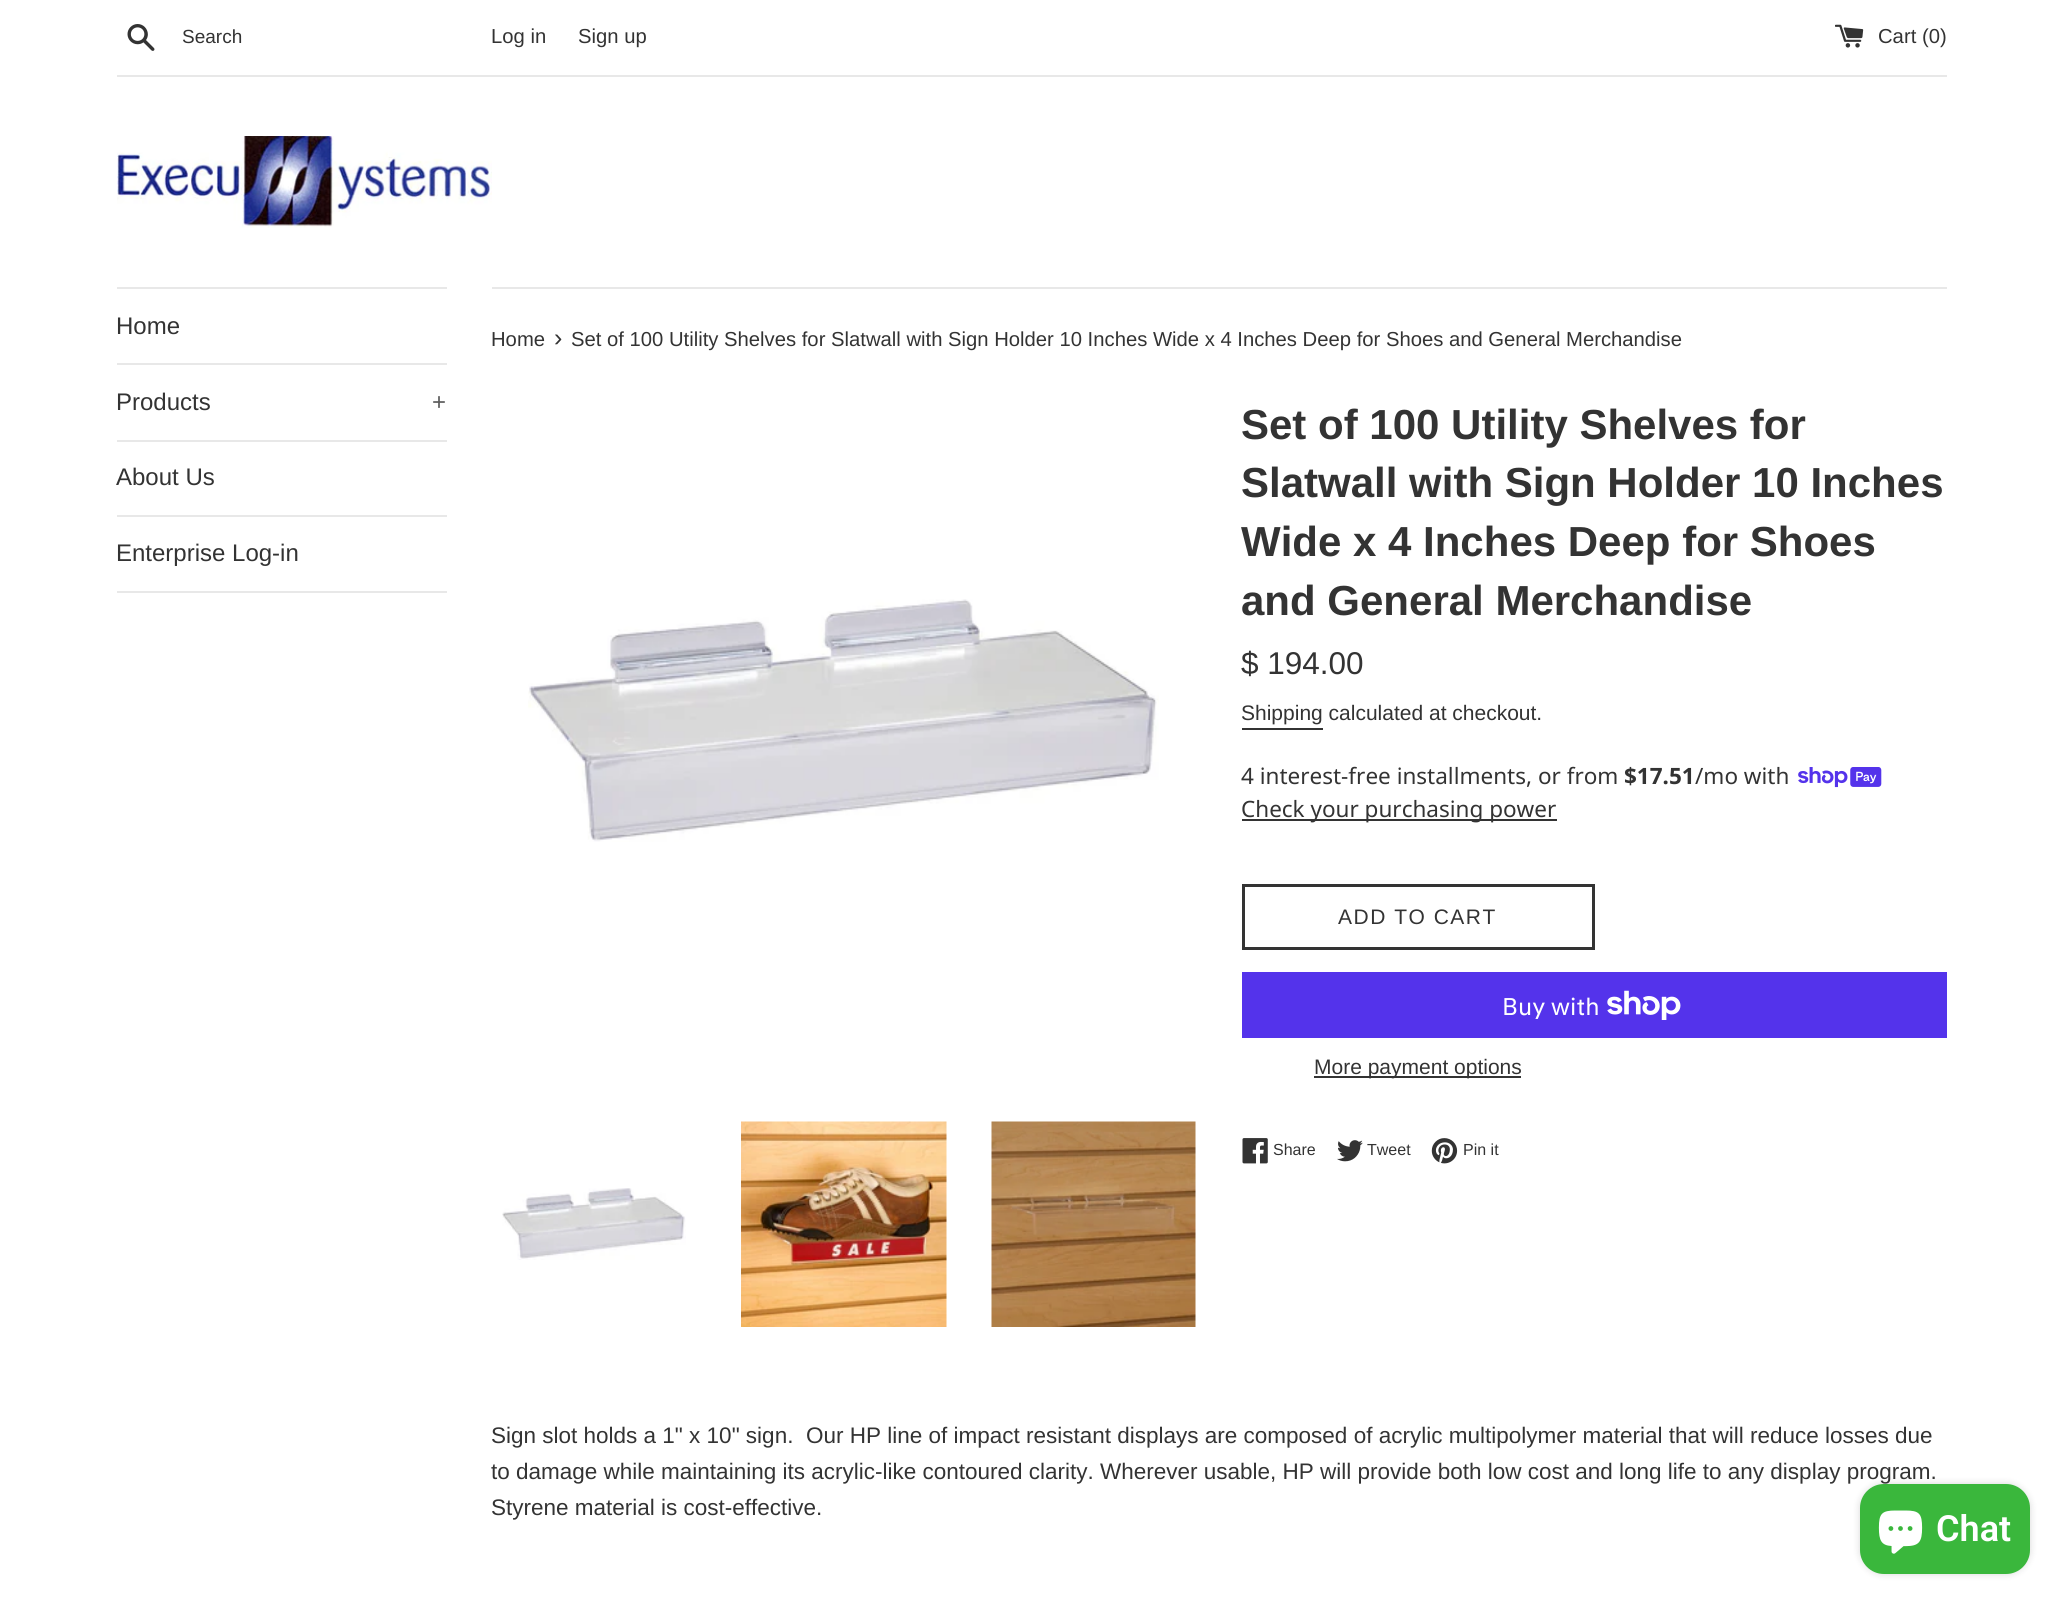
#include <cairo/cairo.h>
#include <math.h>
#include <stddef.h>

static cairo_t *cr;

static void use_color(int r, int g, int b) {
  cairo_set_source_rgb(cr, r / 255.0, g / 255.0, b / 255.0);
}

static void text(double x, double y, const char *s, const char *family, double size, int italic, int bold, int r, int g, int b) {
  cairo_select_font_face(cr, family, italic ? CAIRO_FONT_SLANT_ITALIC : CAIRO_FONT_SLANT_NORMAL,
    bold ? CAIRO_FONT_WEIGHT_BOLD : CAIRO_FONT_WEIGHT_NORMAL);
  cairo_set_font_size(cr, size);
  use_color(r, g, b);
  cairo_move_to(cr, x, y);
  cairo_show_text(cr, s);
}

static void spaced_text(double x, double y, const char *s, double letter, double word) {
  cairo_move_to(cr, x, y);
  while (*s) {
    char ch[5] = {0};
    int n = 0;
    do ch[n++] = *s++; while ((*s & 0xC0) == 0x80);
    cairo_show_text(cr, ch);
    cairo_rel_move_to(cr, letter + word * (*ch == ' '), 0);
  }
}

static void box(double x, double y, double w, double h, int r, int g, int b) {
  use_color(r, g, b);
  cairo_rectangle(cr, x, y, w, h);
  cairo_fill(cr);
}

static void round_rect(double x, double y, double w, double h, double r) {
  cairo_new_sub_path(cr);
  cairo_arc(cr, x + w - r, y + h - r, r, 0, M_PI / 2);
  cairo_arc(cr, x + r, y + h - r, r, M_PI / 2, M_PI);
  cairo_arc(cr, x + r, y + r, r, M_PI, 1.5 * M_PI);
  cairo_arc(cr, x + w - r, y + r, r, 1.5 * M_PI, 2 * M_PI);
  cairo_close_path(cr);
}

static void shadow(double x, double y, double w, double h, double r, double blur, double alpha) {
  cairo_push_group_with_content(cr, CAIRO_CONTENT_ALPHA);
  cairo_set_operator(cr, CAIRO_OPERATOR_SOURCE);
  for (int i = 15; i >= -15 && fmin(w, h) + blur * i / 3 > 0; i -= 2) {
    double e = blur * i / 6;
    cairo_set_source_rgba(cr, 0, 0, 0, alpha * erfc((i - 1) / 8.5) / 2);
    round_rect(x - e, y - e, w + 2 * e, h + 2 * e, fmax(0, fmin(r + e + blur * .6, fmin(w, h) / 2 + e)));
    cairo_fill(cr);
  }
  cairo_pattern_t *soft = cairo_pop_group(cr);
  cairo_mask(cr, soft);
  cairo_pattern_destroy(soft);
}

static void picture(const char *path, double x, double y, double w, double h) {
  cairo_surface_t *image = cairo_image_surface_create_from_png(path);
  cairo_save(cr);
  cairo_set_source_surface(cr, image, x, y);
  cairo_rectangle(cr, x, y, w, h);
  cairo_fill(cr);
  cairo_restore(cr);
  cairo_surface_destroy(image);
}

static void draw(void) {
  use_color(255, 255, 255);
  cairo_paint(cr);
  picture("img_01.png", 127, 24, 28, 27);
  picture("img_02.png", 1835, 24, 29, 24);
  box(117, 75, 1830, 2, 232, 232, 232);
  picture("img_03.png", 117, 136, 375, 92);
  box(117, 287, 330, 2, 232, 232, 232);
  box(117, 363, 330, 2, 232, 232, 232);
  box(117, 440, 330, 2, 232, 232, 232);
  box(117, 515, 330, 2, 232, 232, 232);
  box(117, 591, 330, 2, 232, 232, 232);
  box(492, 287, 1455, 2, 232, 232, 232);
  picture("img_04.png", 528, 599, 631, 243);
  picture("img_05.png", 502, 1188, 184, 72);
  picture("img_06.png", 741, 1121, 206, 206);
  picture("img_07.png", 991, 1121, 205, 206);
  box(1242, 728, 81, 2, 51, 51, 51);
  picture("img_08.png", 1798, 767, 84, 21);
  box(1242, 819, 315, 2, 51, 51, 51);
  cairo_rectangle(cr, 1243.5, 885.5, 350, 63);
  cairo_set_line_width(cr, 3);
  cairo_stroke(cr);
  box(1242, 972, 705, 66, 84, 51, 235);
  picture("img_09.png", 1607, 990, 74, 30);
  box(1314, 1076, 207, 2, 51, 51, 51);
  picture("img_10.png", 1242, 1138, 26, 26);
  picture("img_11.png", 1337, 1140, 26, 22);
  picture("img_12.png", 1431, 1138, 27, 26);
  use_color(0, 0, 0);
  shadow(1860, 1484, 170, 90, 24, 4, 0.15);
  use_color(58, 183, 60);
  round_rect(1860, 1484, 170, 90, 24);
  cairo_fill(cr);
  picture("img_13.png", 1878, 1510, 45, 44);
  text(182, 43, "Search", "Liberation Sans", 19, 0, 0, 51, 51, 51);
  text(491, 43, "Log in", "Liberation Sans", 20.25, 0, 0, 51, 51, 51);
  text(578, 43, "Sign up", "Liberation Sans", 20.25, 0, 0, 51, 51, 51);
  text(1878, 43, "Cart (0)", "Liberation Sans", 20.25, 0, 0, 51, 51, 51);
  text(116, 334, "Home", "Liberation Sans", 24, 0, 0, 51, 51, 51);
  text(116, 410, "Products", "Liberation Sans", 24, 0, 0, 51, 51, 51);
  text(432, 410, "+", "Liberation Sans", 24, 0, 0, 92, 92, 92);
  text(116, 485, "About Us", "Liberation Sans", 24, 0, 0, 51, 51, 51);
  text(116, 561, "Enterprise Log-in", "Liberation Sans", 24, 0, 0, 51, 51, 51);
  text(491, 346, "Home", "Liberation Sans", 20.25, 0, 0, 51, 51, 51);
  text(554, 346, "›", "Liberation Sans", 25, 0, 0, 51, 51, 51);
  text(571, 346, "Set of 100 Utility Shelves for Slatwall with Sign Holder 10 Inches Wide x 4 Inches Deep for Shoes and General Merchandise", "Liberation Sans", 20.25, 0, 0, 51, 51, 51);
  text(1241, 439, "Set of 100 Utility Shelves for", "Liberation Sans", 42, 0, 1, 51, 51, 51);
  text(1241, 497, "Slatwall with Sign Holder 10 Inches", "Liberation Sans", 42, 0, 1, 51, 51, 51);
  text(1241, 556, "Wide x 4 Inches Deep for Shoes", "Liberation Sans", 42, 0, 1, 51, 51, 51);
  text(1241, 615, "and General Merchandise", "Liberation Sans", 42, 0, 1, 51, 51, 51);
  text(1241, 674, "$ 194.00", "Liberation Sans", 31.5, 0, 0, 51, 51, 51);
  text(1241, 720, "Shipping calculated at checkout.", "Liberation Sans", 21, 0, 0, 51, 51, 51);
  text(1241, 784, "4 interest-free installments, or from", "Noto Sans", 22.5, 0, 0, 51, 51, 51);
  text(1624, 784, "$17.51", "Noto Sans", 22.5, 0, 1, 51, 51, 51);
  text(1695, 784, "/mo with", "Noto Sans", 22.5, 0, 0, 51, 51, 51);
  text(1241, 817, "Check your purchasing power", "Noto Sans", 22.5, 0, 0, 51, 51, 51);
  cairo_select_font_face(cr, "Liberation Sans", CAIRO_FONT_SLANT_NORMAL, CAIRO_FONT_WEIGHT_NORMAL);
  cairo_set_font_size(cr, 21);
  spaced_text(1338, 924, "ADD TO CART", 1.5, 0);
  text(1502, 1015, "Buy with", "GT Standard", 24, 0, 0, 255, 255, 255);
  text(1314, 1074, "More payment options", "Liberation Sans", 21, 0, 0, 51, 51, 51);
  text(1273, 1155, "Share", "Liberation Sans", 16, 0, 0, 51, 51, 51);
  text(1367, 1155, "Tweet", "Liberation Sans", 16, 0, 0, 51, 51, 51);
  text(1463, 1155, "Pin it", "Liberation Sans", 16, 0, 0, 51, 51, 51);
  text(491, 1443, "Sign slot holds a 1\" x 10\" sign.  Our HP line of impact resistant displays are composed of acrylic multipolymer material that will reduce losses due", "Liberation Sans", 22.5, 0, 0, 51, 51, 51);
  text(491, 1479, "to damage while maintaining its acrylic-like contoured clarity. Wherever usable, HP will provide both low cost and long life to any display program.", "Liberation Sans", 22.5, 0, 0, 51, 51, 51);
  text(491, 1515, "Styrene material is cost-effective.", "Liberation Sans", 22.5, 0, 0, 51, 51, 51);
  text(1936, 1541, "Chat", "Roboto SemiBold", 36, 0, 0, 255, 255, 255);
}

int main(void) {
  cairo_surface_t *surface = cairo_image_surface_create(CAIRO_FORMAT_RGB24, 2062, 1604);
  cr = cairo_create(surface);
  cairo_font_options_t *options = cairo_font_options_create();
  cairo_font_options_set_hint_metrics(options, CAIRO_HINT_METRICS_OFF);
  cairo_font_options_set_hint_style(options, CAIRO_HINT_STYLE_NONE);
  cairo_set_font_options(cr, options);
  cairo_set_miter_limit(cr, 4);
  draw();
  cairo_surface_write_to_png(surface, "out.png");
  cairo_font_options_destroy(options);
  cairo_destroy(cr);
  cairo_surface_destroy(surface);
  return 0;
}
